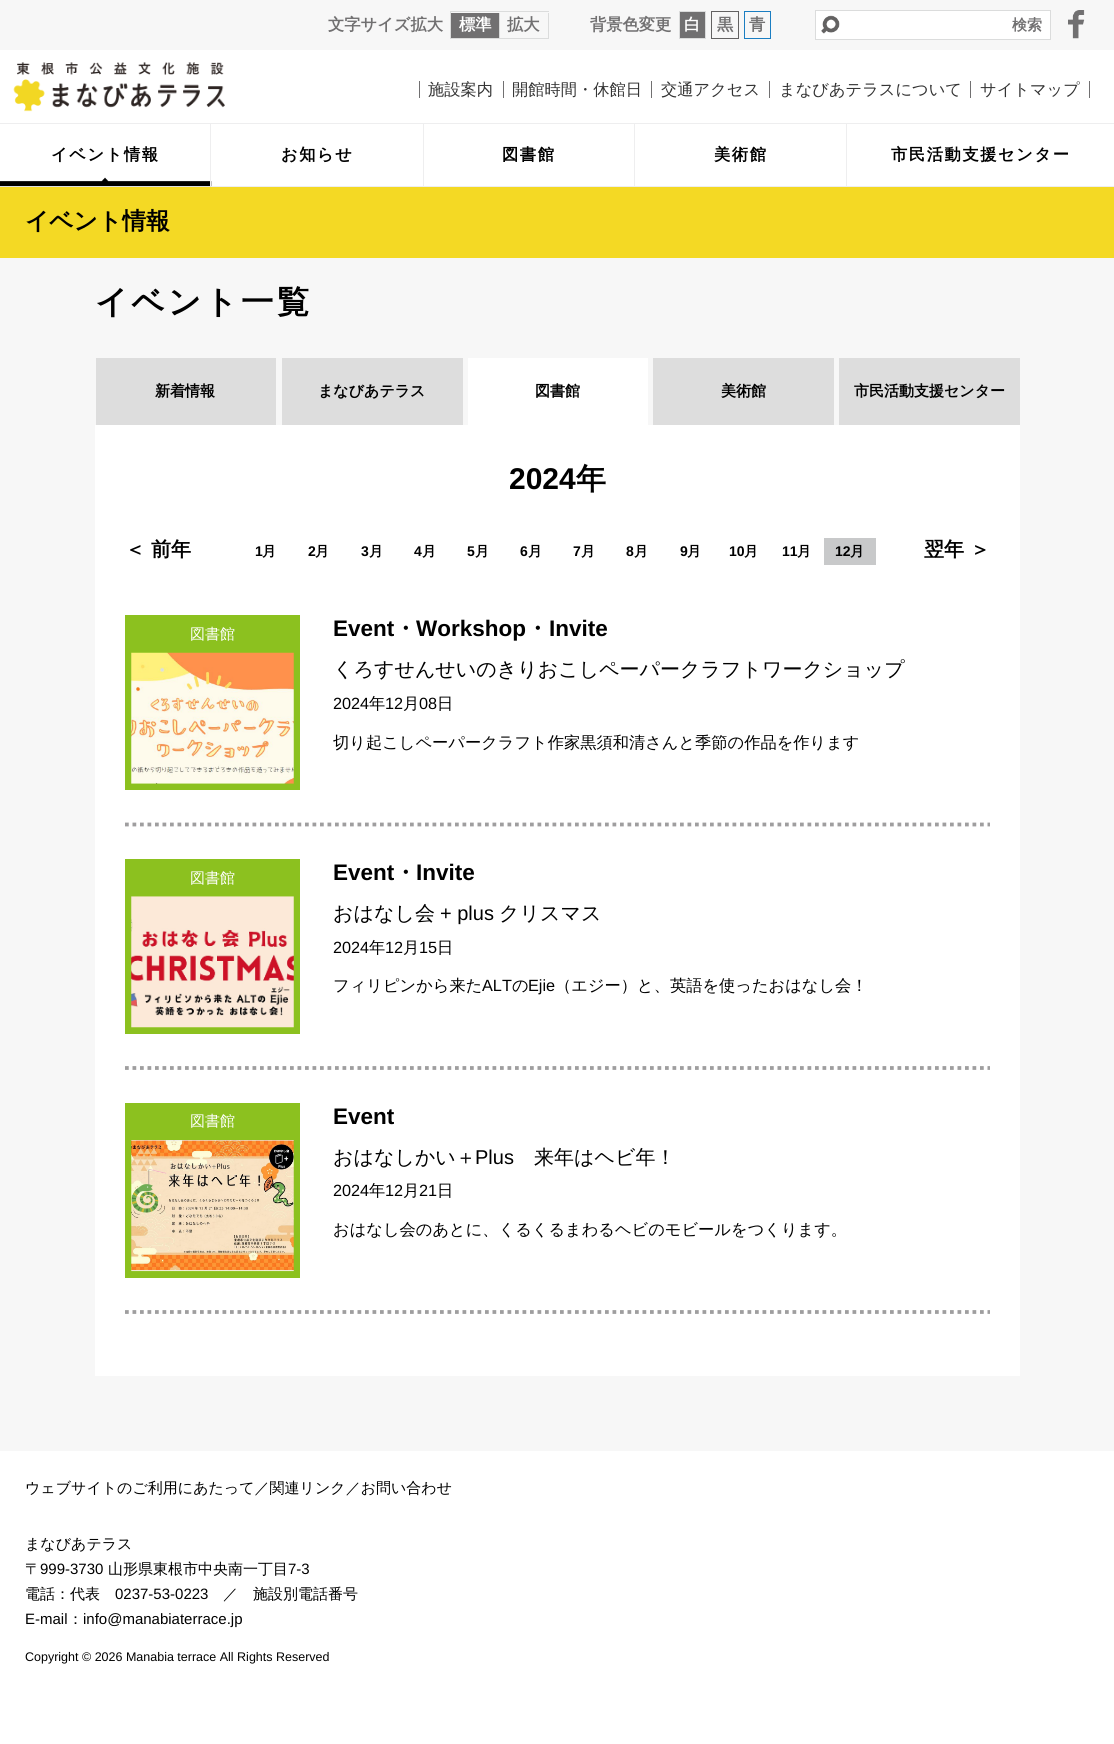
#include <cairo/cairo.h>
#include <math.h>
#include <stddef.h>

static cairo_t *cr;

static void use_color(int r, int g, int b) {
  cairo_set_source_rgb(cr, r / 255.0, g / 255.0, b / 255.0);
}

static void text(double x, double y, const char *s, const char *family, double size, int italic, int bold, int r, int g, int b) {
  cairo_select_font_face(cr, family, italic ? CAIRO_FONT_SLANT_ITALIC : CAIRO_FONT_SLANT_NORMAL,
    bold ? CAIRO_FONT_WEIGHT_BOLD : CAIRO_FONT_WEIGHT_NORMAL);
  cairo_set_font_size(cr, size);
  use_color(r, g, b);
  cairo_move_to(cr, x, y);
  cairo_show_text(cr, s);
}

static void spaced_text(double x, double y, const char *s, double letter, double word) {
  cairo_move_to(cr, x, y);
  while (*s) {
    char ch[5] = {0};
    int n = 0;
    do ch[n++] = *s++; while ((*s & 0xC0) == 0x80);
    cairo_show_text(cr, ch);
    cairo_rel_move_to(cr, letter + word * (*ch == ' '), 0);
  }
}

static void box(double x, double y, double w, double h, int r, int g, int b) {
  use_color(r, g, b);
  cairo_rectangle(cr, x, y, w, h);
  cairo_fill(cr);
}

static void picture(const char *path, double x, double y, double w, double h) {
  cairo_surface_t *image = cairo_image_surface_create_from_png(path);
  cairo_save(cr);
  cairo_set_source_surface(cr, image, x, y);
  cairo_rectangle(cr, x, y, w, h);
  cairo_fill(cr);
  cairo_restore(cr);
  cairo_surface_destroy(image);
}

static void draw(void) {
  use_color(255, 255, 255);
  cairo_paint(cr);
  box(0, 0, 1114, 50, 247, 247, 247);
  box(450, 11, 99, 1, 219, 220, 220);
  box(450, 38, 99, 1, 219, 220, 220);
  box(450, 11, 1, 28, 219, 220, 220);
  box(451, 13, 48, 25, 113, 112, 113);
  box(499, 13, 1, 25, 219, 220, 220);
  box(548, 13, 1, 25, 219, 220, 220);
  use_color(113, 112, 113);
  cairo_rectangle(cr, 679.5, 11.5, 26, 27);
  cairo_fill_preserve(cr);
  use_color(219, 220, 220);
  cairo_set_line_width(cr, 1);
  cairo_stroke(cr);
  cairo_rectangle(cr, 711.5, 11.5, 27, 27);
  use_color(99, 98, 98);
  cairo_stroke(cr);
  cairo_rectangle(cr, 744.5, 11.5, 26, 27);
  use_color(27, 126, 194);
  cairo_stroke(cr);
  box(816, 11, 234, 28, 255, 255, 255);
  picture("img_01.png", 821, 15, 19, 19);
  box(815, 10, 236, 1, 219, 220, 220);
  box(815, 39, 189, 1, 219, 220, 220);
  box(815, 10, 1, 30, 219, 220, 220);
  box(1050, 10, 1, 30, 219, 220, 220);
  box(1004, 39, 47, 1, 219, 220, 220);
  picture("img_02.png", 1068, 10, 17, 29);
  picture("img_03.png", 13, 62, 212, 50);
  box(0, 123, 1114, 1, 238, 238, 239);
  box(0, 186, 1114, 1, 238, 238, 239);
  box(419, 81, 1, 17, 113, 112, 113);
  box(503, 81, 1, 17, 113, 112, 113);
  box(651, 81, 1, 17, 113, 112, 113);
  box(769, 81, 1, 17, 113, 112, 113);
  box(1089, 81, 1, 17, 113, 112, 113);
  box(970, 81, 1, 17, 113, 112, 113);
  picture("img_04.png", 0, 177, 212, 10);
  box(210, 124, 1, 62, 238, 238, 239);
  box(423, 124, 1, 62, 238, 238, 239);
  box(634, 124, 1, 62, 238, 238, 239);
  box(846, 124, 1, 62, 238, 238, 239);
  box(0, 258, 1114, 1193, 247, 247, 247);
  box(0, 187, 1114, 71, 244, 217, 36);
  box(96, 358, 180, 67, 221, 221, 221);
  box(282, 358, 181, 67, 221, 221, 221);
  box(468, 358, 180, 67, 255, 255, 255);
  box(653, 358, 181, 67, 221, 221, 221);
  box(839, 358, 181, 67, 221, 221, 221);
  box(95, 425, 925, 951, 255, 255, 255);
  box(824, 538, 52, 27, 200, 201, 202);
  cairo_new_path(cr);
  cairo_move_to(cr, 125, 824.5);
  cairo_line_to(cr, 990, 824.5);
  use_color(159, 158, 159);
  cairo_set_line_width(cr, 3.8);
  cairo_set_dash(cr, (double[]){3.75, 3.75}, 2, 0);
  cairo_stroke(cr);
  box(125, 615, 175, 175, 140, 193, 31);
  picture("img_05.png", 131, 652, 163, 132);
  cairo_new_path(cr);
  cairo_move_to(cr, 125, 1068);
  cairo_line_to(cr, 990, 1068);
  use_color(159, 158, 159);
  cairo_stroke(cr);
  box(125, 859, 175, 175, 140, 193, 31);
  picture("img_06.png", 131, 896, 163, 132);
  cairo_new_path(cr);
  cairo_move_to(cr, 125, 1312);
  cairo_line_to(cr, 990, 1312);
  use_color(159, 158, 159);
  cairo_stroke(cr);
  box(125, 1103, 175, 175, 140, 193, 31);
  picture("img_07.png", 131, 1140, 163, 132);
  text(328, 30, "文字サイズ拡大", "WenQuanYi Zen Hei", 16.25, 0, 1, 113, 112, 113);
  text(459, 30, "標準", "WenQuanYi Zen Hei", 16.25, 0, 1, 255, 255, 255);
  text(507, 30, "拡大", "WenQuanYi Zen Hei", 16.25, 0, 1, 113, 112, 113);
  text(590, 30, "背景色変更", "WenQuanYi Zen Hei", 16.25, 0, 1, 113, 112, 113);
  text(684, 30, "白", "WenQuanYi Zen Hei", 16.25, 0, 1, 255, 255, 255);
  text(717, 30, "黒", "WenQuanYi Zen Hei", 16.25, 0, 1, 113, 112, 113);
  text(749, 30, "青", "WenQuanYi Zen Hei", 16.25, 0, 1, 113, 112, 113);
  text(1012, 30, "検索", "WenQuanYi Zen Hei", 15, 0, 1, 113, 112, 113);
  text(428, 95, "施設案内", "WenQuanYi Zen Hei Medium", 16.25, 0, 0, 51, 51, 51);
  text(512, 95, "開館時間・休館日", "WenQuanYi Zen Hei Medium", 16.25, 0, 0, 51, 51, 51);
  text(661, 95, "交通アクセス", "WenQuanYi Zen Hei Medium", 16.25, 0, 0, 51, 51, 51);
  text(779, 95, "まなびあテラスについて", "WenQuanYi Zen Hei Medium", 16.25, 0, 0, 51, 51, 51);
  text(980, 95, "サイトマップ", "WenQuanYi Zen Hei Medium", 16.25, 0, 0, 51, 51, 51);
  cairo_select_font_face(cr, "WenQuanYi Zen Hei", CAIRO_FONT_SLANT_NORMAL, CAIRO_FONT_WEIGHT_BOLD);
  use_color(0, 0, 0);
  spaced_text(51, 160, "イベント情報", 1.6, 0);
  spaced_text(281, 160, "お知らせ", 1.6, 0);
  spaced_text(502, 160, "図書館", 1.6, 0);
  spaced_text(714, 160, "美術館", 1.6, 0);
  spaced_text(891, 160, "市民活動支援センター", 1.6, 0);
  text(25, 229, "イベント情報", "WenQuanYi Zen Hei", 23.75, 0, 1, 0, 0, 0);
  cairo_set_font_size(cr, 32.5);
  spaced_text(95, 313, "イベント一覧", 3.25, 0);
  text(155, 396, "新着情報", "WenQuanYi Zen Hei", 15, 0, 1, 0, 0, 0);
  text(318, 396, "まなびあテラス", "WenQuanYi Zen Hei", 15, 0, 1, 0, 0, 0);
  text(535, 396, "図書館", "WenQuanYi Zen Hei", 15, 0, 1, 0, 0, 0);
  text(721, 396, "美術館", "WenQuanYi Zen Hei", 15, 0, 1, 0, 0, 0);
  text(854, 396, "市民活動支援センター", "WenQuanYi Zen Hei", 15, 0, 1, 0, 0, 0);
  text(509, 489, "2024", "Liberation Sans", 30, 0, 1, 0, 0, 0);
  text(576, 489, "年", "WenQuanYi Zen Hei", 30, 0, 1, 0, 0, 0);
  text(125, 556, "＜ 前年", "WenQuanYi Zen Hei", 20, 0, 1, 0, 0, 0);
  text(924, 556, "翌年 ＞", "WenQuanYi Zen Hei", 20, 0, 1, 0, 0, 0);
  text(255, 556, "1", "Liberation Sans", 14, 0, 1, 0, 0, 0);
  text(262, 556, "月", "WenQuanYi Zen Hei", 14, 0, 1, 0, 0, 0);
  text(308, 556, "2", "Liberation Sans", 14, 0, 1, 0, 0, 0);
  text(315, 556, "月", "WenQuanYi Zen Hei", 14, 0, 1, 0, 0, 0);
  text(361, 556, "3", "Liberation Sans", 14, 0, 1, 0, 0, 0);
  text(369, 556, "月", "WenQuanYi Zen Hei", 14, 0, 1, 0, 0, 0);
  text(414, 556, "4", "Liberation Sans", 14, 0, 1, 0, 0, 0);
  text(422, 556, "月", "WenQuanYi Zen Hei", 14, 0, 1, 0, 0, 0);
  text(467, 556, "5", "Liberation Sans", 14, 0, 1, 0, 0, 0);
  text(475, 556, "月", "WenQuanYi Zen Hei", 14, 0, 1, 0, 0, 0);
  text(520, 556, "6", "Liberation Sans", 14, 0, 1, 0, 0, 0);
  text(528, 556, "月", "WenQuanYi Zen Hei", 14, 0, 1, 0, 0, 0);
  text(573, 556, "7", "Liberation Sans", 14, 0, 1, 0, 0, 0);
  text(581, 556, "月", "WenQuanYi Zen Hei", 14, 0, 1, 0, 0, 0);
  text(626, 556, "8", "Liberation Sans", 14, 0, 1, 0, 0, 0);
  text(634, 556, "月", "WenQuanYi Zen Hei", 14, 0, 1, 0, 0, 0);
  text(680, 556, "9", "Liberation Sans", 14, 0, 1, 0, 0, 0);
  text(687, 556, "月", "WenQuanYi Zen Hei", 14, 0, 1, 0, 0, 0);
  text(729, 556, "10", "Liberation Sans", 14, 0, 1, 0, 0, 0);
  text(744, 556, "月", "WenQuanYi Zen Hei", 14, 0, 1, 0, 0, 0);
  text(782, 556, "11", "Liberation Sans", 14, 0, 1, 0, 0, 0);
  text(797, 556, "月", "WenQuanYi Zen Hei", 14, 0, 1, 0, 0, 0);
  text(835, 556, "12", "Liberation Sans", 14, 0, 1, 0, 0, 0);
  text(850, 556, "月", "WenQuanYi Zen Hei", 14, 0, 1, 0, 0, 0);
  text(190, 639, "図書館", "WenQuanYi Zen Hei Medium", 15, 0, 0, 255, 255, 255);
  text(333, 636, "Event", "Liberation Sans", 22.5, 0, 1, 0, 0, 0);
  text(394, 636, "・", "WenQuanYi Zen Hei", 22.5, 0, 1, 0, 0, 0);
  text(416, 636, "Workshop", "Liberation Sans", 22.5, 0, 1, 0, 0, 0);
  text(526, 636, "・", "WenQuanYi Zen Hei", 22.5, 0, 1, 0, 0, 0);
  text(549, 636, "Invite", "Liberation Sans", 22.5, 0, 1, 0, 0, 0);
  text(333, 676, "くろすせんせいのきりおこしペーパークラフトワークショップ", "WenQuanYi Zen Hei Medium", 20, 0, 0, 0, 0, 0);
  text(333, 709, "2024", "Liberation Sans", 16.25, 0, 0, 0, 0, 0);
  text(369, 709, "年", "WenQuanYi Zen Hei Medium", 16.25, 0, 0, 0, 0, 0);
  text(385, 709, "12", "Liberation Sans", 16.25, 0, 0, 0, 0, 0);
  text(403, 709, "月", "WenQuanYi Zen Hei Medium", 16.25, 0, 0, 0, 0, 0);
  text(419, 709, "08", "Liberation Sans", 16.25, 0, 0, 0, 0, 0);
  text(437, 709, "日", "WenQuanYi Zen Hei Medium", 16.25, 0, 0, 0, 0, 0);
  text(333, 748, "切り起こしペーパークラフト作家黒須和清さんと季節の作品を作ります", "WenQuanYi Zen Hei Medium", 16.25, 0, 0, 0, 0, 0);
  text(190, 883, "図書館", "WenQuanYi Zen Hei Medium", 15, 0, 0, 255, 255, 255);
  text(333, 880, "Event", "Liberation Sans", 22.5, 0, 1, 0, 0, 0);
  text(394, 880, "・", "WenQuanYi Zen Hei", 22.5, 0, 1, 0, 0, 0);
  text(416, 880, "Invite", "Liberation Sans", 22.5, 0, 1, 0, 0, 0);
  text(333, 920, "おはなし会", "WenQuanYi Zen Hei Medium", 20, 0, 0, 0, 0, 0);
  text(440, 920, "+ plus", "Liberation Sans", 20, 0, 0, 0, 0, 0);
  text(499, 920, "クリスマス", "WenQuanYi Zen Hei Medium", 20, 0, 0, 0, 0, 0);
  text(333, 953, "2024", "Liberation Sans", 16.25, 0, 0, 0, 0, 0);
  text(369, 953, "年", "WenQuanYi Zen Hei Medium", 16.25, 0, 0, 0, 0, 0);
  text(385, 953, "12", "Liberation Sans", 16.25, 0, 0, 0, 0, 0);
  text(403, 953, "月", "WenQuanYi Zen Hei Medium", 16.25, 0, 0, 0, 0, 0);
  text(419, 953, "15", "Liberation Sans", 16.25, 0, 0, 0, 0, 0);
  text(437, 953, "日", "WenQuanYi Zen Hei Medium", 16.25, 0, 0, 0, 0, 0);
  text(333, 991, "フィリピンから来た", "WenQuanYi Zen Hei Medium", 16.25, 0, 0, 0, 0, 0);
  text(482, 991, "ALT", "Liberation Sans", 16.25, 0, 0, 0, 0, 0);
  text(512, 991, "の", "WenQuanYi Zen Hei Medium", 16.25, 0, 0, 0, 0, 0);
  text(528, 991, "Ejie", "Liberation Sans", 16.25, 0, 0, 0, 0, 0);
  text(555, 991, "（エジー）と、英語を使ったおはなし会！", "WenQuanYi Zen Hei Medium", 16.25, 0, 0, 0, 0, 0);
  text(190, 1126, "図書館", "WenQuanYi Zen Hei Medium", 15, 0, 0, 255, 255, 255);
  text(333, 1124, "Event", "Liberation Sans", 22.5, 0, 1, 0, 0, 0);
  text(333, 1164, "おはなしかい＋", "WenQuanYi Zen Hei Medium", 20, 0, 0, 0, 0, 0);
  text(475, 1164, "Plus", "Liberation Sans", 20, 0, 0, 0, 0, 0);
  text(534, 1164, "来年はヘビ年！", "WenQuanYi Zen Hei Medium", 20, 0, 0, 0, 0, 0);
  text(333, 1196, "2024", "Liberation Sans", 16.25, 0, 0, 0, 0, 0);
  text(369, 1196, "年", "WenQuanYi Zen Hei Medium", 16.25, 0, 0, 0, 0, 0);
  text(385, 1196, "12", "Liberation Sans", 16.25, 0, 0, 0, 0, 0);
  text(403, 1196, "月", "WenQuanYi Zen Hei Medium", 16.25, 0, 0, 0, 0, 0);
  text(419, 1196, "21", "Liberation Sans", 16.25, 0, 0, 0, 0, 0);
  text(437, 1196, "日", "WenQuanYi Zen Hei Medium", 16.25, 0, 0, 0, 0, 0);
  text(333, 1235, "おはなし会のあとに、くるくるまわるヘビのモビールをつくります。", "WenQuanYi Zen Hei Medium", 16.25, 0, 0, 0, 0, 0);
  text(25, 1493, "ウェブサイトのご利用にあたって／関連リンク／お問い合わせ", "WenQuanYi Zen Hei Medium", 15, 0, 0, 0, 0, 0);
  text(25, 1549, "まなびあテラス", "WenQuanYi Zen Hei Medium", 15, 0, 0, 0, 0, 0);
  text(25, 1574, "〒", "WenQuanYi Zen Hei Medium", 15, 0, 0, 0, 0, 0);
  text(40, 1574, "999-3730", "Liberation Sans", 15, 0, 0, 0, 0, 0);
  text(108, 1574, "山形県東根市中央南一丁目", "WenQuanYi Zen Hei Medium", 15, 0, 0, 0, 0, 0);
  text(288, 1574, "7-3", "Liberation Sans", 15, 0, 0, 0, 0, 0);
  text(25, 1599, "電話：代表", "WenQuanYi Zen Hei Medium", 15, 0, 0, 0, 0, 0);
  text(115, 1599, "0237-53-0223", "Liberation Sans", 15, 0, 0, 0, 0, 0);
  text(223, 1599, "／", "WenQuanYi Zen Hei Medium", 15, 0, 0, 0, 0, 0);
  text(253, 1599, "施設別電話番号", "WenQuanYi Zen Hei Medium", 15, 0, 0, 0, 0, 0);
  text(25, 1624, "E-mail", "Liberation Sans", 15, 0, 0, 0, 0, 0);
  text(68, 1624, "：", "WenQuanYi Zen Hei Medium", 15, 0, 0, 0, 0, 0);
  text(83, 1624, "info@manabiaterrace.jp", "Liberation Sans", 15, 0, 0, 0, 0, 0);
  text(25, 1661, "Copyright © 2026 Manabia terrace All Rights Reserved", "Liberation Sans", 12.5, 0, 0, 0, 0, 0);
}

int main(void) {
  cairo_surface_t *surface = cairo_image_surface_create(CAIRO_FORMAT_RGB24, 1114, 1744);
  cr = cairo_create(surface);
  cairo_font_options_t *options = cairo_font_options_create();
  cairo_font_options_set_hint_metrics(options, CAIRO_HINT_METRICS_OFF);
  cairo_font_options_set_hint_style(options, CAIRO_HINT_STYLE_NONE);
  cairo_set_font_options(cr, options);
  cairo_set_miter_limit(cr, 4);
  draw();
  cairo_surface_write_to_png(surface, "out.png");
  cairo_font_options_destroy(options);
  cairo_destroy(cr);
  cairo_surface_destroy(surface);
  return 0;
}
